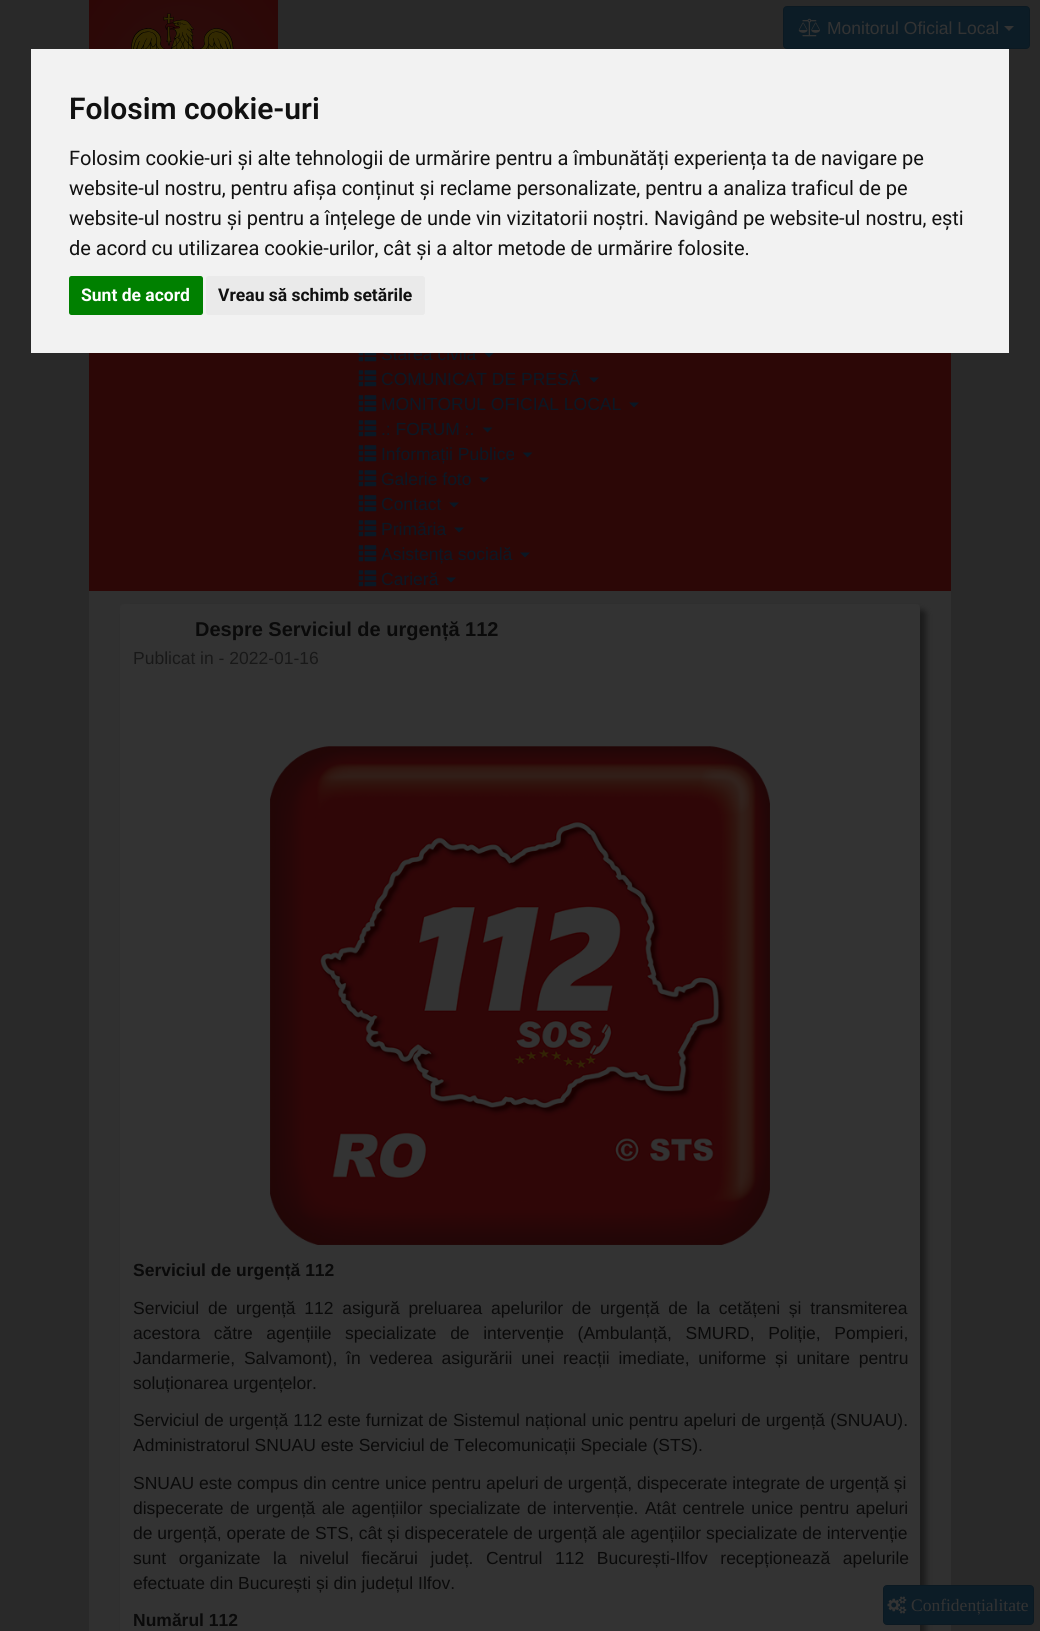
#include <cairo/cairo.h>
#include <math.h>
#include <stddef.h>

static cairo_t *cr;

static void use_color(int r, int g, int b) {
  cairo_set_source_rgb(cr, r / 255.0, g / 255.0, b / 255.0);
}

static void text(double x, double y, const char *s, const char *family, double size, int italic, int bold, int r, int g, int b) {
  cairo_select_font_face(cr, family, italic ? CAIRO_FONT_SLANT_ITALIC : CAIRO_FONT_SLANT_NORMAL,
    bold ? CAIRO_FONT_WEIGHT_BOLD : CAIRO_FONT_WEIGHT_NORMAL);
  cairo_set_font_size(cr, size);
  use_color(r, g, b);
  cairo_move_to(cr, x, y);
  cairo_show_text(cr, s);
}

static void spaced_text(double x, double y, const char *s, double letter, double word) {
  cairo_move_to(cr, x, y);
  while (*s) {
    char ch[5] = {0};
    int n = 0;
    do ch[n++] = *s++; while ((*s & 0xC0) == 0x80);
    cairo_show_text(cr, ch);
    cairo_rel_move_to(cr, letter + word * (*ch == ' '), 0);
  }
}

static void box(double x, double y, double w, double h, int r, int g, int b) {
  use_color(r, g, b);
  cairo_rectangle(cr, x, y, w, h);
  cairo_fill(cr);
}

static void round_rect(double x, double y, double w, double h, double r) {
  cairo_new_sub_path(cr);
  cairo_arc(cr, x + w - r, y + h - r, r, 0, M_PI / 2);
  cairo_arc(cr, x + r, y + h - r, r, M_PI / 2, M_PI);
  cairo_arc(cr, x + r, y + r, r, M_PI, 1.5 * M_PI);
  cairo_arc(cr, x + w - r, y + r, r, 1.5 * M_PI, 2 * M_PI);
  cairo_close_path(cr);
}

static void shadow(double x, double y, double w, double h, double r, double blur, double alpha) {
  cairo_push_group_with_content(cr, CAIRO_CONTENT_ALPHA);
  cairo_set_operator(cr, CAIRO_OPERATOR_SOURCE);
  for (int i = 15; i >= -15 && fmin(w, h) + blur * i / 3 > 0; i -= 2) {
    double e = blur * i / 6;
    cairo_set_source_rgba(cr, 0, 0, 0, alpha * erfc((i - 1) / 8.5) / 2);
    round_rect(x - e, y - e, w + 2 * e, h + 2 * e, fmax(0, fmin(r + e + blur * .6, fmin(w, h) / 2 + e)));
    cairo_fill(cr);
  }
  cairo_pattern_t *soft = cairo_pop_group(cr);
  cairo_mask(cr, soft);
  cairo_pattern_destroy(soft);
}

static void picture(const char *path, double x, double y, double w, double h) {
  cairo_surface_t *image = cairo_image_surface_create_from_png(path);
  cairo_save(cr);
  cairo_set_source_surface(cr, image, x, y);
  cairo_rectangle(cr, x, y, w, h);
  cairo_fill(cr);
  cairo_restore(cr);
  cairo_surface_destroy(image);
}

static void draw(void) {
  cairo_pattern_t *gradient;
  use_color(41, 41, 41);
  cairo_paint(cr);
  gradient = cairo_pattern_create_radial(0, 0, 0, 0, 0, 1);
  cairo_pattern_set_matrix(gradient, &(cairo_matrix_t){1.0 / 133, 0, 0, 1.0 / 188, -1.0 * 183 / 133, -1.0 * 133 / 188});
  cairo_pattern_add_color_stop_rgba(gradient, 0, 0.161, 0.059, 0.055, 1);
  cairo_pattern_add_color_stop_rgba(gradient, 1, 0.173, 0.027, 0.024, 1);
  cairo_set_source(cr, gradient);
  cairo_pattern_destroy(gradient);
  cairo_rectangle(cr, 89, 0, 189, 49);
  cairo_fill(cr);
  picture("img_01.png", 131, 13, 103, 36);
  use_color(12, 28, 38);
  round_rect(783.5, 6.5, 246, 42, 3.5);
  cairo_fill_preserve(cr);
  use_color(11, 25, 34);
  cairo_set_line_width(cr, 1);
  cairo_stroke(cr);
  picture("img_02.png", 798, 18, 22, 19);
  use_color(51, 51, 51);
  cairo_new_path(cr);
  cairo_move_to(cr, 1004, 26);
  cairo_line_to(cr, 1014, 26);
  cairo_line_to(cr, 1009, 31);
  cairo_close_path(cr);
  cairo_fill(cr);
  box(89, 353, 862, 238, 44, 7, 6);
  picture("img_03.png", 358, 353, 19, 9);
  use_color(10, 24, 37);
  cairo_new_path(cr);
  cairo_move_to(cr, 484, 352.5);
  cairo_line_to(cr, 494, 352.5);
  cairo_line_to(cr, 489, 357.5);
  cairo_close_path(cr);
  cairo_fill(cr);
  picture("img_04.png", 358, 370, 19, 17);
  cairo_new_path(cr);
  cairo_move_to(cr, 589, 377.5);
  cairo_line_to(cr, 599, 377.5);
  cairo_line_to(cr, 594, 382.5);
  cairo_close_path(cr);
  cairo_fill(cr);
  picture("img_04.png", 358, 395, 19, 17);
  cairo_new_path(cr);
  cairo_move_to(cr, 629, 402.5);
  cairo_line_to(cr, 639, 402.5);
  cairo_line_to(cr, 634, 407.5);
  cairo_close_path(cr);
  cairo_fill(cr);
  picture("img_04.png", 358, 420, 19, 17);
  cairo_new_path(cr);
  cairo_move_to(cr, 482.5, 427.5);
  cairo_line_to(cr, 492.5, 427.5);
  cairo_line_to(cr, 487.5, 432.5);
  cairo_close_path(cr);
  cairo_fill(cr);
  picture("img_04.png", 358, 445, 19, 17);
  cairo_new_path(cr);
  cairo_move_to(cr, 522.5, 452.5);
  cairo_line_to(cr, 532.5, 452.5);
  cairo_line_to(cr, 527.5, 457.5);
  cairo_close_path(cr);
  cairo_fill(cr);
  picture("img_04.png", 358, 470, 19, 17);
  cairo_new_path(cr);
  cairo_move_to(cr, 479, 477.5);
  cairo_line_to(cr, 489, 477.5);
  cairo_line_to(cr, 484, 482.5);
  cairo_close_path(cr);
  cairo_fill(cr);
  picture("img_04.png", 358, 495, 19, 17);
  cairo_new_path(cr);
  cairo_move_to(cr, 449, 502.5);
  cairo_line_to(cr, 459, 502.5);
  cairo_line_to(cr, 454, 507.5);
  cairo_close_path(cr);
  cairo_fill(cr);
  picture("img_04.png", 358, 520, 19, 17);
  cairo_new_path(cr);
  cairo_move_to(cr, 454, 527.5);
  cairo_line_to(cr, 464, 527.5);
  cairo_line_to(cr, 459, 532.5);
  cairo_close_path(cr);
  cairo_fill(cr);
  picture("img_04.png", 358, 545, 19, 17);
  cairo_new_path(cr);
  cairo_move_to(cr, 520, 552.5);
  cairo_line_to(cr, 530, 552.5);
  cairo_line_to(cr, 525, 557.5);
  cairo_close_path(cr);
  cairo_fill(cr);
  picture("img_04.png", 358, 570, 19, 17);
  cairo_new_path(cr);
  cairo_move_to(cr, 446, 577.5);
  cairo_line_to(cr, 456, 577.5);
  cairo_line_to(cr, 451, 582.5);
  cairo_close_path(cr);
  cairo_fill(cr);
  box(89, 591, 862, 1040, 48, 48, 48);
  use_color(27, 27, 27);
  shadow(126, 610, 800, 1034, 4, 3, 1);
  use_color(51, 51, 51);
  round_rect(120, 604, 800, 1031, 4);
  cairo_fill(cr);
  picture("img_05.png", 270, 746, 500, 499);
  use_color(12, 28, 38);
  round_rect(883.5, 1585.5, 150, 39, 3.5);
  cairo_fill_preserve(cr);
  use_color(11, 25, 34);
  cairo_stroke(cr);
  picture("img_06.png", 887, 1596, 20, 18);
  text(827, 34, "Monitorul Oficial Local", "Liberation Sans", 17.5, 0, 0, 51, 51, 51);
  text(381, 360, "Starea civila", "Liberation Sans", 17.5, 0, 0, 10, 24, 37);
  text(381, 385, "COMUNICAT DE PRESĂ", "Liberation Sans", 17.5, 0, 0, 10, 24, 37);
  text(381, 410, "MONITORUL OFICIAL LOCAL", "Liberation Sans", 17.5, 0, 0, 10, 24, 37);
  text(381, 435, ".: FORUM :.", "Liberation Sans", 17.5, 0, 0, 10, 24, 37);
  text(381, 460, "Informații Publice", "Liberation Sans", 17.5, 0, 0, 10, 24, 37);
  text(381, 485, "Galerie foto", "Liberation Sans", 17.5, 0, 0, 10, 24, 37);
  text(381, 510, "Contact", "Liberation Sans", 17.5, 0, 0, 10, 24, 37);
  text(381, 535, "Primăria", "Liberation Sans", 17.5, 0, 0, 10, 24, 37);
  text(381, 560, "Asistența socială", "Liberation Sans", 17.5, 0, 0, 10, 24, 37);
  text(381, 585, "Carieră", "Liberation Sans", 17.5, 0, 0, 10, 24, 37);
  text(195, 636, "Despre Serviciul de urgență 112", "Liberation Sans", 20, 0, 1, 10, 10, 10);
  text(133, 664, "Publicat in - 2022-01-16", "Liberation Sans", 17.5, 0, 0, 24, 24, 24);
  text(133, 1276, "Serviciul de urgență 112", "Liberation Sans", 17.5, 0, 1, 10, 10, 10);
  cairo_select_font_face(cr, "Liberation Sans", CAIRO_FONT_SLANT_NORMAL, CAIRO_FONT_WEIGHT_NORMAL);
  spaced_text(133, 1314, "Serviciul de urgență 112 asigură preluarea apelurilor de urgență de la cetățeni și transmiterea", 0, 3.9);
  spaced_text(133, 1339, "acestora către agențiile specializate de intervenție (Ambulanță, SMURD, Poliție, Pompieri,", 0, 8.75);
  spaced_text(133, 1364, "Jandarmerie, Salvamont), în vederea asigurării unei reacții imediate, uniforme și unitare pentru", 0, 3.9);
  text(133, 1389, "soluționarea urgențelor.", "Liberation Sans", 17.5, 0, 0, 10, 10, 10);
  spaced_text(133, 1426, "Serviciul de urgență 112 este furnizat de Sistemul național unic pentru apeluri de urgență (SNUAU).", 0, 0.25);
  text(133, 1451, "Administratorul SNUAU este Serviciul de Telecomunicații Speciale (STS).", "Liberation Sans", 17.5, 0, 0, 10, 10, 10);
  text(133, 1489, "SNUAU este compus din centre unice pentru apeluri de urgență, dispecerate integrate de urgență și", "Liberation Sans", 17.5, 0, 0, 10, 10, 10);
  spaced_text(133, 1514, "dispecerate de urgență ale agențiilor specializate de intervenție. Atât centrele unice pentru apeluri", 0, 1.6);
  text(133, 1539, "de urgență, operate de STS, cât și dispeceratele de urgență ale agențiilor specializate de intervenție", "Liberation Sans", 17.5, 0, 0, 10, 10, 10);
  spaced_text(133, 1564, "sunt organizate la nivelul fiecărui județ. Centrul 112 București-Ilfov recepționează apelurile", 0, 7.75);
  text(133, 1589, "efectuate din București și din județul Ilfov.", "Liberation Sans", 17.5, 0, 0, 10, 10, 10);
  text(133, 1626, "Numărul 112", "Liberation Sans", 17.5, 0, 1, 10, 10, 10);
  box(31, 49, 978, 304, 242, 242, 242);
  text(69, 119, "Folosim cookie-uri", "Roboto SemiBold", 30, 0, 0, 17, 17, 17);
  text(69, 165, "Folosim cookie-uri și alte tehnologii de urmărire pentru a îmbunătăți experiența ta de navigare pe", "Roboto", 20, 0, 0, 17, 17, 17);
  text(69, 195, "website-ul nostru, pentru afișa conținut și reclame personalizate, pentru a analiza traficul de pe", "Roboto", 20, 0, 0, 17, 17, 17);
  text(69, 225, "website-ul nostru și pentru a înțelege de unde vin vizitatorii noștri. Navigând pe website-ul nostru, ești", "Roboto", 20, 0, 0, 17, 17, 17);
  text(69, 255, "de acord cu utilizarea cookie-urilor, cât și a altor metode de urmărire folosite.", "Roboto", 20, 0, 0, 17, 17, 17);
  use_color(0, 128, 0);
  round_rect(69, 276, 134, 39, 2.5);
  cairo_fill(cr);
  text(81, 301, "Sunt de acord", "Roboto", 17.5, 0, 1, 255, 255, 255);
  use_color(234, 234, 234);
  round_rect(206, 276, 219, 39, 2.5);
  cairo_fill(cr);
  text(218, 301, "Vreau să schimb setările", "Roboto", 17.5, 0, 1, 17, 17, 17);
  text(911, 1611, "Confidențialitate", "Liberation Serif", 17.5, 0, 0, 51, 51, 51);
}

int main(void) {
  cairo_surface_t *surface = cairo_image_surface_create(CAIRO_FORMAT_RGB24, 1040, 1631);
  cr = cairo_create(surface);
  cairo_font_options_t *options = cairo_font_options_create();
  cairo_font_options_set_hint_metrics(options, CAIRO_HINT_METRICS_OFF);
  cairo_font_options_set_hint_style(options, CAIRO_HINT_STYLE_NONE);
  cairo_set_font_options(cr, options);
  cairo_set_miter_limit(cr, 4);
  draw();
  cairo_surface_write_to_png(surface, "out.png");
  cairo_font_options_destroy(options);
  cairo_destroy(cr);
  cairo_surface_destroy(surface);
  return 0;
}
